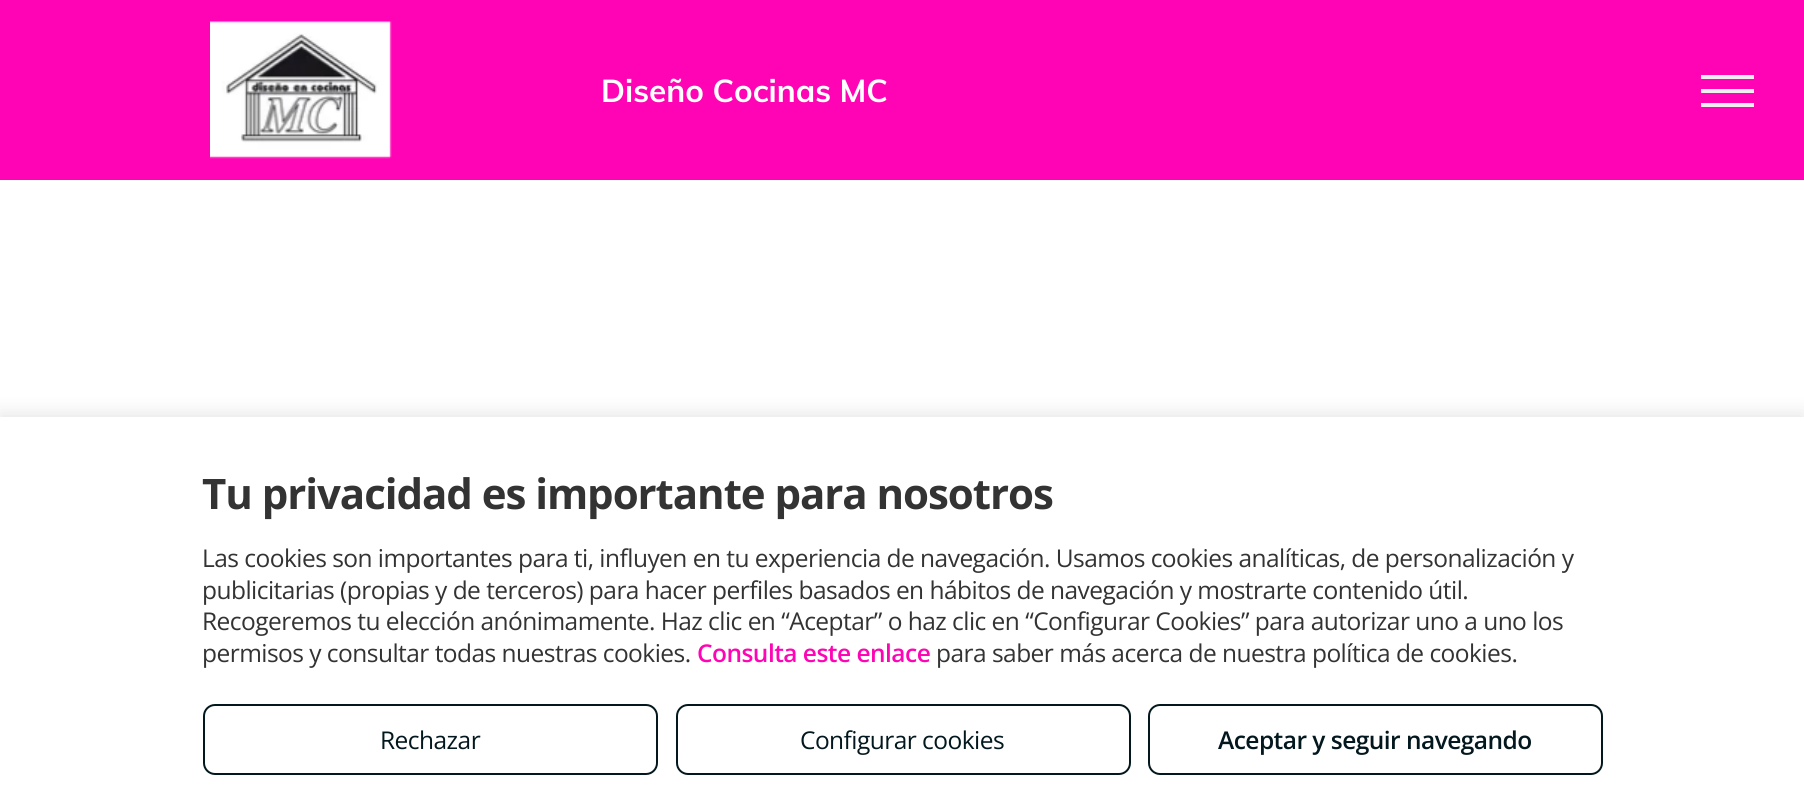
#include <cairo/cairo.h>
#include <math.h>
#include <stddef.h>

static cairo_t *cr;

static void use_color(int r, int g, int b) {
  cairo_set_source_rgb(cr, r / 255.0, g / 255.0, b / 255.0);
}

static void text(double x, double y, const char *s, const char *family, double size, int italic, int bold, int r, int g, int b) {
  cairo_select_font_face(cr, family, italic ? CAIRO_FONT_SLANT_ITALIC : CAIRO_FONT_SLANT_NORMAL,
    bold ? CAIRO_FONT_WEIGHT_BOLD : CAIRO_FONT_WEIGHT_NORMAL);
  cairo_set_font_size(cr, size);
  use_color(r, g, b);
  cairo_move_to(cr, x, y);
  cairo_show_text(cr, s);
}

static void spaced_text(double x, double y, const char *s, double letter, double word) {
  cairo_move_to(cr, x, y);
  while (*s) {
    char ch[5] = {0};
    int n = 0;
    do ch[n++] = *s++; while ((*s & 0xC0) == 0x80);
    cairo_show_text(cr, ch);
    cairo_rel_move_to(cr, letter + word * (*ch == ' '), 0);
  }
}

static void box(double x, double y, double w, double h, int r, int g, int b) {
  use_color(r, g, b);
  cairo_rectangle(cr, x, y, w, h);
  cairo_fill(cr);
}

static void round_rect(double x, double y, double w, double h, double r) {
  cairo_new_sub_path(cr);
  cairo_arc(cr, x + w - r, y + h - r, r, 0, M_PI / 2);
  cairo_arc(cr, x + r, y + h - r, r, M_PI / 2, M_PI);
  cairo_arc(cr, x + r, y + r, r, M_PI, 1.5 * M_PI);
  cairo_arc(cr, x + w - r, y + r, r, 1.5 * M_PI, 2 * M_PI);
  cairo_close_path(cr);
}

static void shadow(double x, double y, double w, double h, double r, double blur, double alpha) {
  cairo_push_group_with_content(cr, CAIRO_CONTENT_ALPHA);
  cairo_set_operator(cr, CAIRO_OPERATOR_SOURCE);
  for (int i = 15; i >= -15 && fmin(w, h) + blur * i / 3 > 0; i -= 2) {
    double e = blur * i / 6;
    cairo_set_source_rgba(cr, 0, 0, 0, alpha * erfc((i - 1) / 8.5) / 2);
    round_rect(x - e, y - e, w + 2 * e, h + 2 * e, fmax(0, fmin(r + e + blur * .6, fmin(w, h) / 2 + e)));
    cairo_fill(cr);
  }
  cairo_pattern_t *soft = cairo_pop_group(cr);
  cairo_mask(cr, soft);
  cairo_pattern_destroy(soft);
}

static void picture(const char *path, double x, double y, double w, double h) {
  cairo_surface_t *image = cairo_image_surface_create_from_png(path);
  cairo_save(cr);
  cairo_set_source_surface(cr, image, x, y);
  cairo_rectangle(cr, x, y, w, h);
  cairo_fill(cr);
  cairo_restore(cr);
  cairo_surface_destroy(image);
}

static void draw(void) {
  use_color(255, 255, 255);
  cairo_paint(cr);
  box(0, 0, 1804, 180, 255, 4, 181);
  picture("img_01.png", 210, 21, 182, 138);
  box(1701, 75, 53, 4, 240, 240, 240);
  box(1701, 89, 53, 4, 240, 240, 240);
  box(1701, 103, 53, 4, 240, 240, 240);
  use_color(0, 0, 0);
  shadow(0, 413, 1804, 394, 0, 9, 0.1);
  box(0, 417, 1804, 392, 255, 255, 255);
  round_rect(204, 705, 453, 69, 11);
  use_color(3, 24, 30);
  cairo_stroke(cr);
  round_rect(677, 705, 453, 69, 11);
  cairo_stroke(cr);
  round_rect(1149, 705, 453, 69, 11);
  cairo_stroke(cr);
  text(601, 102, "Diseño Cocinas MC", "Muli", 31.5, 0, 1, 255, 255, 255);
  cairo_select_font_face(cr, "Open Sans", CAIRO_FONT_SLANT_NORMAL, CAIRO_FONT_WEIGHT_BOLD);
  cairo_set_font_size(cr, 42);
  use_color(51, 51, 51);
  spaced_text(202, 509, "Tu privacidad es importante para nosotros", -1.05, 0);
  cairo_select_font_face(cr, "Open Sans", CAIRO_FONT_SLANT_NORMAL, CAIRO_FONT_WEIGHT_NORMAL);
  cairo_set_font_size(cr, 24.5);
  spaced_text(202, 567, "Las cookies son importantes para ti, influyen en tu experiencia de navegación. Usamos cookies analíticas, de personalización y", -0.53, 0);
  spaced_text(202, 599, "publicitarias (propias y de terceros) para hacer perfiles basados en hábitos de navegación y mostrarte contenido útil.", -0.53, 0);
  spaced_text(202, 630, "Recogeremos tu elección anónimamente. Haz clic en “Aceptar” o haz clic en “Configurar Cookies” para autorizar uno a uno los", -0.53, 0);
  spaced_text(202, 662, "permisos y consultar todas nuestras cookies.", -0.53, 0);
  cairo_select_font_face(cr, "Open Sans SemiBold", CAIRO_FONT_SLANT_NORMAL, CAIRO_FONT_WEIGHT_NORMAL);
  use_color(255, 4, 181);
  spaced_text(697, 662, "Consulta este enlace", -0.53, 0);
  cairo_select_font_face(cr, "Open Sans", CAIRO_FONT_SLANT_NORMAL, CAIRO_FONT_WEIGHT_NORMAL);
  use_color(51, 51, 51);
  spaced_text(936, 662, "para saber más acerca de nuestra política de cookies.", -0.53, 0);
  use_color(3, 24, 30);
  spaced_text(380, 749, "Rechazar", -0.53, 0);
  spaced_text(800, 749, "Configurar cookies", -0.53, 0);
  cairo_select_font_face(cr, "Open Sans SemiBold", CAIRO_FONT_SLANT_NORMAL, CAIRO_FONT_WEIGHT_NORMAL);
  spaced_text(1218, 749, "Aceptar y seguir navegando", -0.53, 0);
}

int main(void) {
  cairo_surface_t *surface = cairo_image_surface_create(CAIRO_FORMAT_RGB24, 1804, 809);
  cr = cairo_create(surface);
  cairo_font_options_t *options = cairo_font_options_create();
  cairo_font_options_set_hint_metrics(options, CAIRO_HINT_METRICS_OFF);
  cairo_font_options_set_hint_style(options, CAIRO_HINT_STYLE_NONE);
  cairo_set_font_options(cr, options);
  cairo_set_miter_limit(cr, 4);
  draw();
  cairo_surface_write_to_png(surface, "out.png");
  cairo_font_options_destroy(options);
  cairo_destroy(cr);
  cairo_surface_destroy(surface);
  return 0;
}
